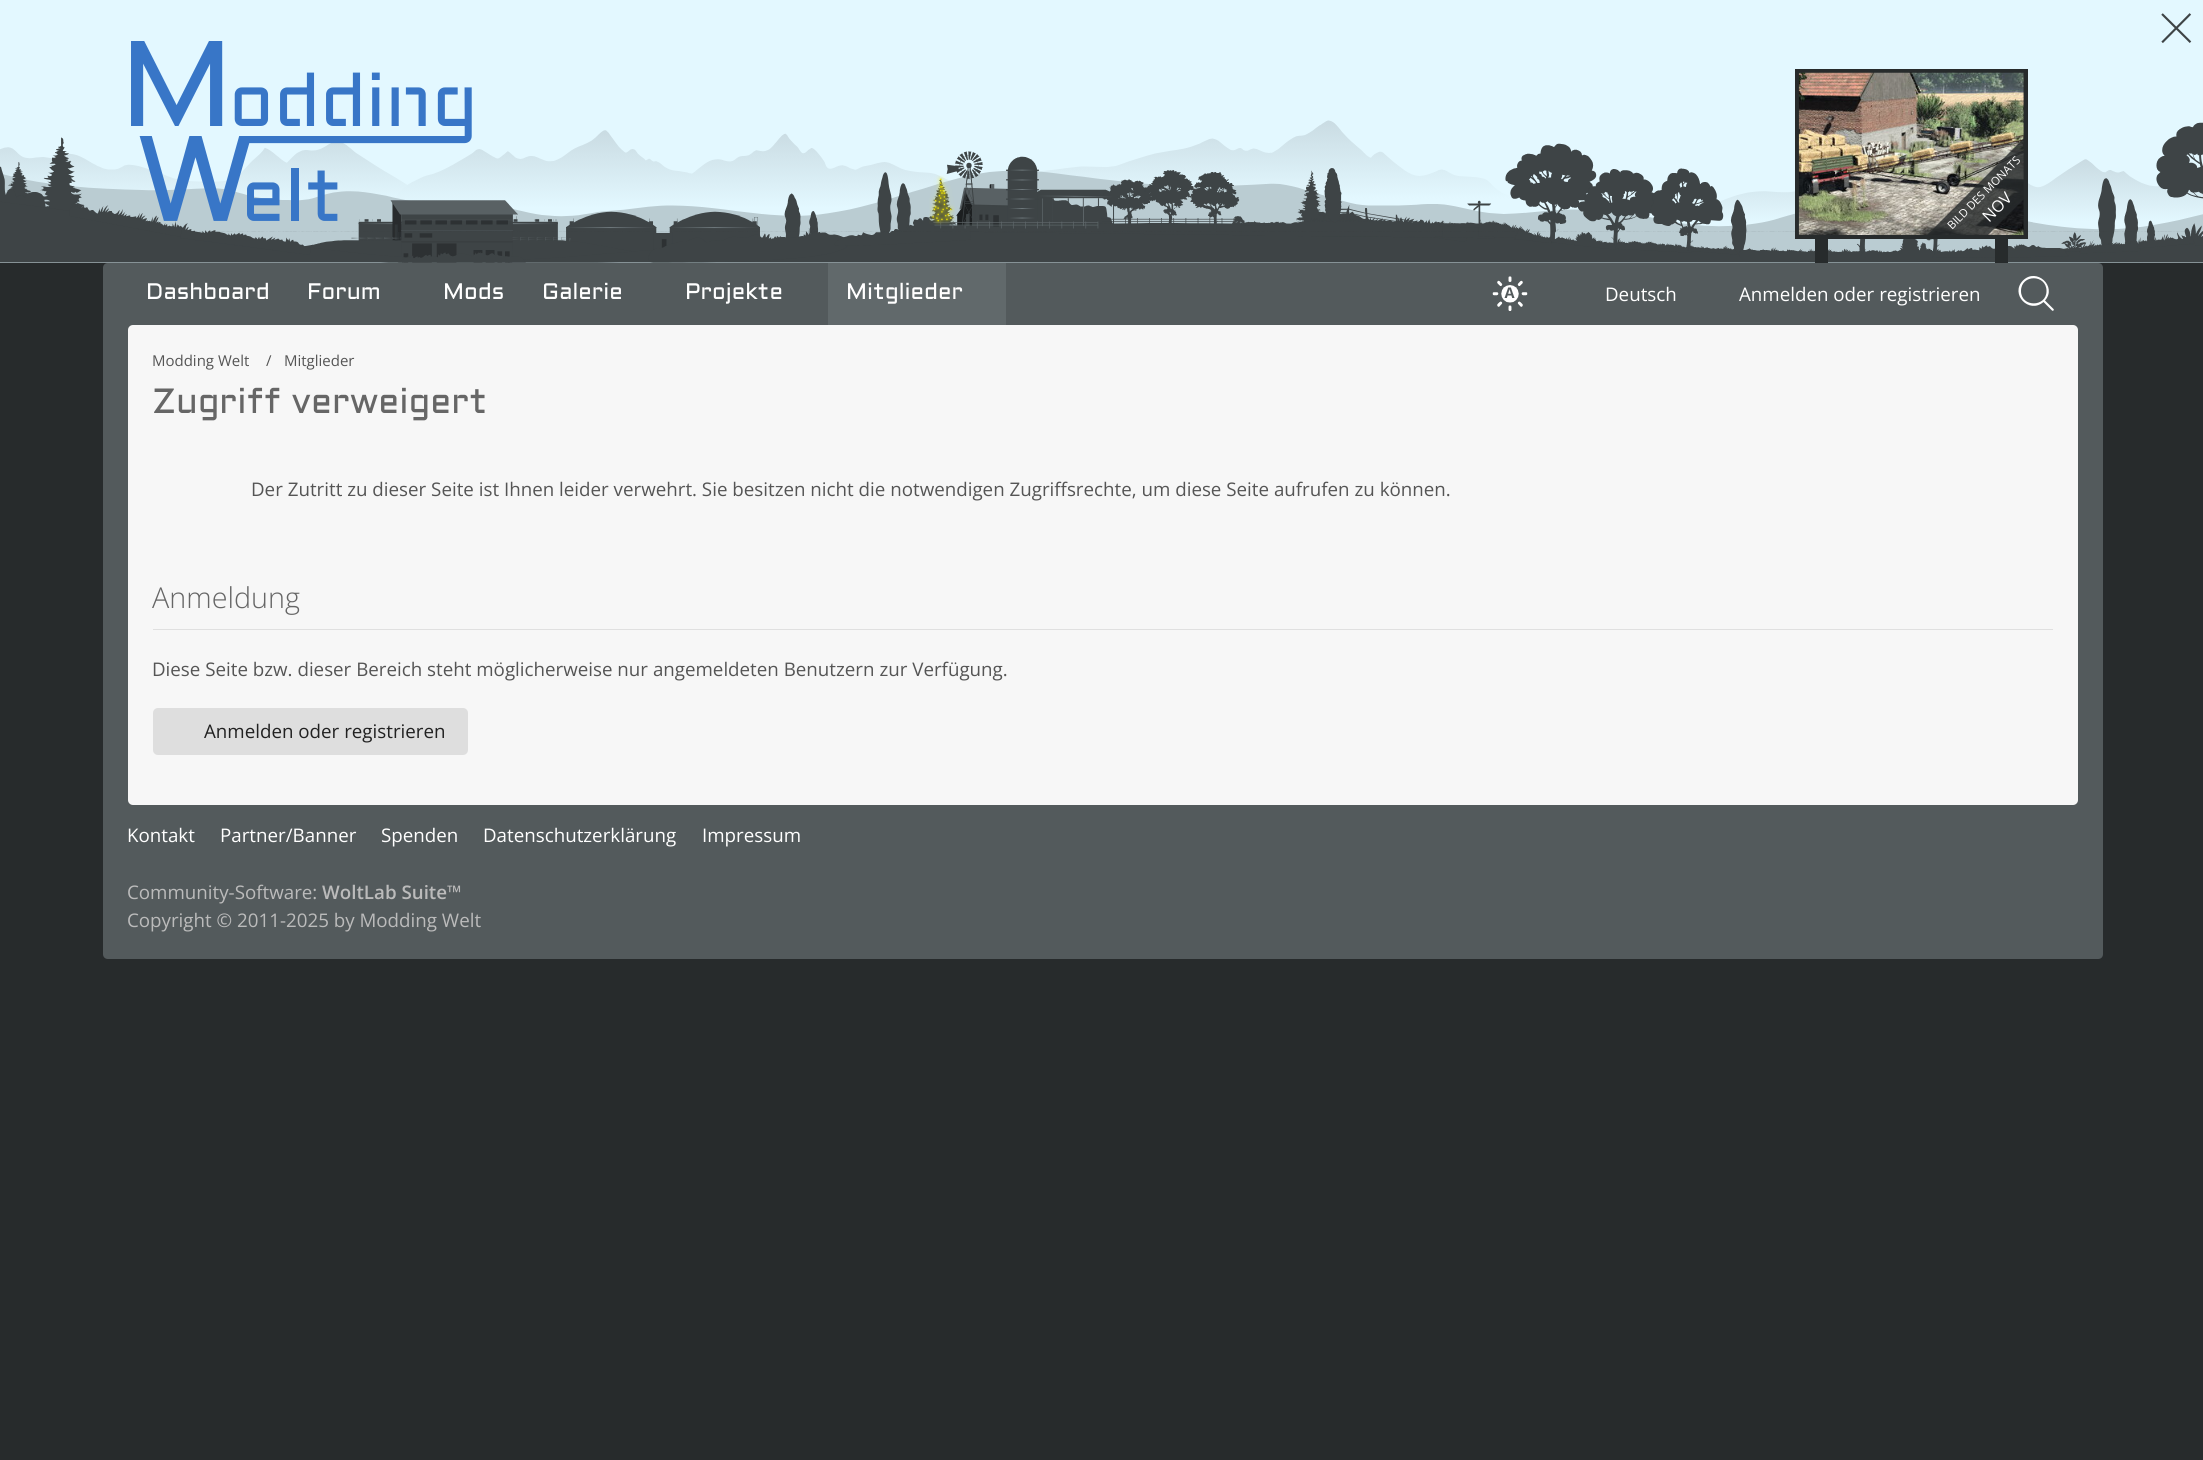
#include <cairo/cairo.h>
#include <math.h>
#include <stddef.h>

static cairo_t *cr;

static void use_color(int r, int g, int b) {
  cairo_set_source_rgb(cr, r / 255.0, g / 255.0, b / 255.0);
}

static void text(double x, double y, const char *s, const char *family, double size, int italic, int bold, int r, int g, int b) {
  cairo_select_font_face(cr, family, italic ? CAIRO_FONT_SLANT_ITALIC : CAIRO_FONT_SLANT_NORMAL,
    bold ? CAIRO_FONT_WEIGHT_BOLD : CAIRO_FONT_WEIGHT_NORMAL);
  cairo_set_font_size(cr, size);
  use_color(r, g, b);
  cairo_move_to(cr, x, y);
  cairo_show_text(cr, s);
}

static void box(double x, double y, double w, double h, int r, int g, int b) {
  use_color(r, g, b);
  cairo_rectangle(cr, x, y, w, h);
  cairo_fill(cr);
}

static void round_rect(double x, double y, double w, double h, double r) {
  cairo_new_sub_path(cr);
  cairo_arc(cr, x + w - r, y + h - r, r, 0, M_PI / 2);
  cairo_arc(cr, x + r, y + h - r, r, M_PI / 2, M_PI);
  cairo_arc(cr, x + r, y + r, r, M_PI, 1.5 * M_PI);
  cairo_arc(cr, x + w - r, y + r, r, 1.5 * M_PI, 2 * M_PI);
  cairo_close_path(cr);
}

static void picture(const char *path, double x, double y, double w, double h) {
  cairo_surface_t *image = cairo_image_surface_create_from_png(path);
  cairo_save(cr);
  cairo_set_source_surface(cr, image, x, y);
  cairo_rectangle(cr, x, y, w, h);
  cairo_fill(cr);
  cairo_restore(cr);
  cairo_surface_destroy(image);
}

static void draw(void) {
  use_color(39, 43, 44);
  cairo_paint(cr);
  box(0, 0, 2203, 263, 227, 248, 255);
  picture("img_01.png", 0, 120, 2203, 143);
  picture("img_02.png", 929, 175, 26, 50);
  picture("img_03.png", 2161, 13, 31, 30);
  picture("img_04.png", 131, 41, 341, 180);
  picture("img_06.png", 195, 231, 2007, 1);
  box(1795, 69, 233, 170, 39, 43, 44);
  picture("img_05.png", 1798, 72, 226, 163);
  cairo_save(cr);
  cairo_rectangle(cr, 1799, 73, 225, 162);
  cairo_clip(cr);
  cairo_set_source_rgba(cr, 0.153, 0.169, 0.173, 0.8);
  cairo_new_path(cr);
  cairo_move_to(cr, 1898, 264);
  cairo_line_to(cr, 2055, 107);
  cairo_line_to(cr, 2086, 137);
  cairo_line_to(cr, 1928, 295);
  cairo_close_path(cr);
  cairo_fill(cr);
  cairo_restore(cr);
  box(1815, 239, 13, 24, 39, 43, 44);
  box(1995, 239, 13, 24, 39, 43, 44);
  use_color(83, 90, 92);
  cairo_new_path(cr);
  cairo_move_to(cr, 108, 263);
  cairo_line_to(cr, 2098, 263);
  cairo_curve_to(cr, 2101, 263, 2103, 265, 2103, 268);
  cairo_line_to(cr, 2103, 325);
  cairo_line_to(cr, 103, 325);
  cairo_line_to(cr, 103, 268);
  cairo_curve_to(cr, 103, 265, 105, 263, 108, 263);
  cairo_close_path(cr);
  cairo_fill(cr);
  box(828, 263, 178, 62, 97, 105, 107);
  picture("img_07.png", 1492, 276, 36, 35);
  use_color(255, 255, 255);
  cairo_new_path(cr);
  cairo_move_to(cr, 2053.5, 309);
  cairo_curve_to(cr, 2054.5, 310, 2053, 311.5, 2052, 310.5);
  cairo_line_to(cr, 2043.5, 302);
  cairo_curve_to(cr, 2029, 314.5, 2009.5, 294, 2023, 280.5);
  cairo_curve_to(cr, 2036.5, 267, 2057.5, 286.5, 2045, 300.5);
  cairo_close_path(cr);
  cairo_move_to(cr, 2021, 291);
  cairo_curve_to(cr, 2021, 307.5, 2046.5, 307.5, 2046.5, 291);
  cairo_curve_to(cr, 2046.5, 274, 2021, 274, 2021, 291);
  cairo_close_path(cr);
  cairo_fill(cr);
  box(103, 325, 2000, 528, 83, 90, 92);
  use_color(247, 247, 247);
  round_rect(128, 325, 1950, 480, 5);
  cairo_fill(cr);
  box(153, 629, 1900, 1, 224, 224, 224);
  use_color(222, 222, 222);
  round_rect(153, 708, 315, 47, 5);
  cairo_fill(cr);
  use_color(83, 90, 92);
  cairo_new_path(cr);
  cairo_move_to(cr, 103, 853);
  cairo_line_to(cr, 2103, 853);
  cairo_line_to(cr, 2103, 954);
  cairo_curve_to(cr, 2103, 957, 2101, 959, 2098, 959);
  cairo_line_to(cr, 108, 959);
  cairo_curve_to(cr, 105, 959, 103, 957, 103, 954);
  cairo_close_path(cr);
  cairo_fill(cr);
  cairo_save(cr);
  cairo_translate(cr, 1952, 230);
  cairo_rotate(cr, -45 * M_PI / 180);
  text(0, 0, "BILD DES MONATS", "Open Sans", 11.25, 0, 0, 255, 255, 255);
  cairo_restore(cr);
  cairo_save(cr);
  cairo_translate(cr, 1989, 223);
  cairo_rotate(cr, -45 * M_PI / 180);
  text(0, 0, "NOV", "Open Sans", 16, 0, 0, 255, 255, 255);
  cairo_restore(cr);
  text(146, 299, "Dashboard", "Aldrich", 22.5, 0, 0, 255, 255, 255);
  text(307, 299, "Forum", "Aldrich", 22.5, 0, 0, 255, 255, 255);
  text(443, 299, "Mods", "Aldrich", 22.5, 0, 0, 255, 255, 255);
  text(542, 299, "Galerie", "Aldrich", 22.5, 0, 0, 255, 255, 255);
  text(685, 299, "Projekte", "Aldrich", 22.5, 0, 0, 255, 255, 255);
  text(846, 299, "Mitglieder", "Aldrich", 22.5, 0, 0, 255, 255, 255);
  text(1605, 301, "Deutsch", "Open Sans", 18.75, 0, 0, 255, 255, 255);
  text(1739, 301, "Anmelden oder registrieren", "Open Sans", 18.75, 0, 0, 255, 255, 255);
  text(152, 366, "Modding Welt", "Open Sans", 15, 0, 0, 85, 85, 85);
  text(266, 366, "/", "Open Sans", 15, 0, 0, 85, 85, 85);
  text(284, 366, "Mitglieder", "Open Sans", 15, 0, 0, 85, 85, 85);
  text(152, 413, "Zugriff verweigert", "Aldrich", 35, 0, 0, 102, 102, 102);
  text(251, 496, "Der Zutritt zu dieser Seite ist Ihnen leider verwehrt. Sie besitzen nicht die notwendigen Zugriffsrechte, um diese Seite aufrufen zu können.", "Open Sans", 18.75, 0, 0, 85, 85, 85);
  text(152, 608, "Anmeldung", "Open Sans Light", 28.75, 0, 0, 102, 102, 102);
  text(152, 676, "Diese Seite bzw. dieser Bereich steht möglicherweise nur angemeldeten Benutzern zur Verfügung.", "Open Sans", 18.75, 0, 0, 85, 85, 85);
  text(204, 738, "Anmelden oder registrieren", "Open Sans", 18.75, 0, 0, 33, 33, 33);
  text(127, 842, "Kontakt", "Open Sans", 18.75, 0, 0, 255, 255, 255);
  text(220, 842, "Partner/Banner", "Open Sans", 18.75, 0, 0, 255, 255, 255);
  text(381, 842, "Spenden", "Open Sans", 18.75, 0, 0, 255, 255, 255);
  text(483, 842, "Datenschutzerklärung", "Open Sans", 18.75, 0, 0, 255, 255, 255);
  text(702, 842, "Impressum", "Open Sans", 18.75, 0, 0, 255, 255, 255);
  text(127, 899, "Community-Software:", "Open Sans", 18.75, 0, 0, 187, 187, 187);
  text(322, 899, "WoltLab Suite™", "Open Sans SemiBold", 18.75, 0, 0, 187, 187, 187);
  text(127, 927, "Copyright © 2011-2025 by Modding Welt", "Open Sans", 18.75, 0, 0, 187, 187, 187);
}

int main(void) {
  cairo_surface_t *surface = cairo_image_surface_create(CAIRO_FORMAT_RGB24, 2203, 1460);
  cr = cairo_create(surface);
  cairo_font_options_t *options = cairo_font_options_create();
  cairo_font_options_set_hint_metrics(options, CAIRO_HINT_METRICS_OFF);
  cairo_font_options_set_hint_style(options, CAIRO_HINT_STYLE_NONE);
  cairo_set_font_options(cr, options);
  cairo_set_miter_limit(cr, 4);
  draw();
  cairo_surface_write_to_png(surface, "out.png");
  cairo_font_options_destroy(options);
  cairo_destroy(cr);
  cairo_surface_destroy(surface);
  return 0;
}
